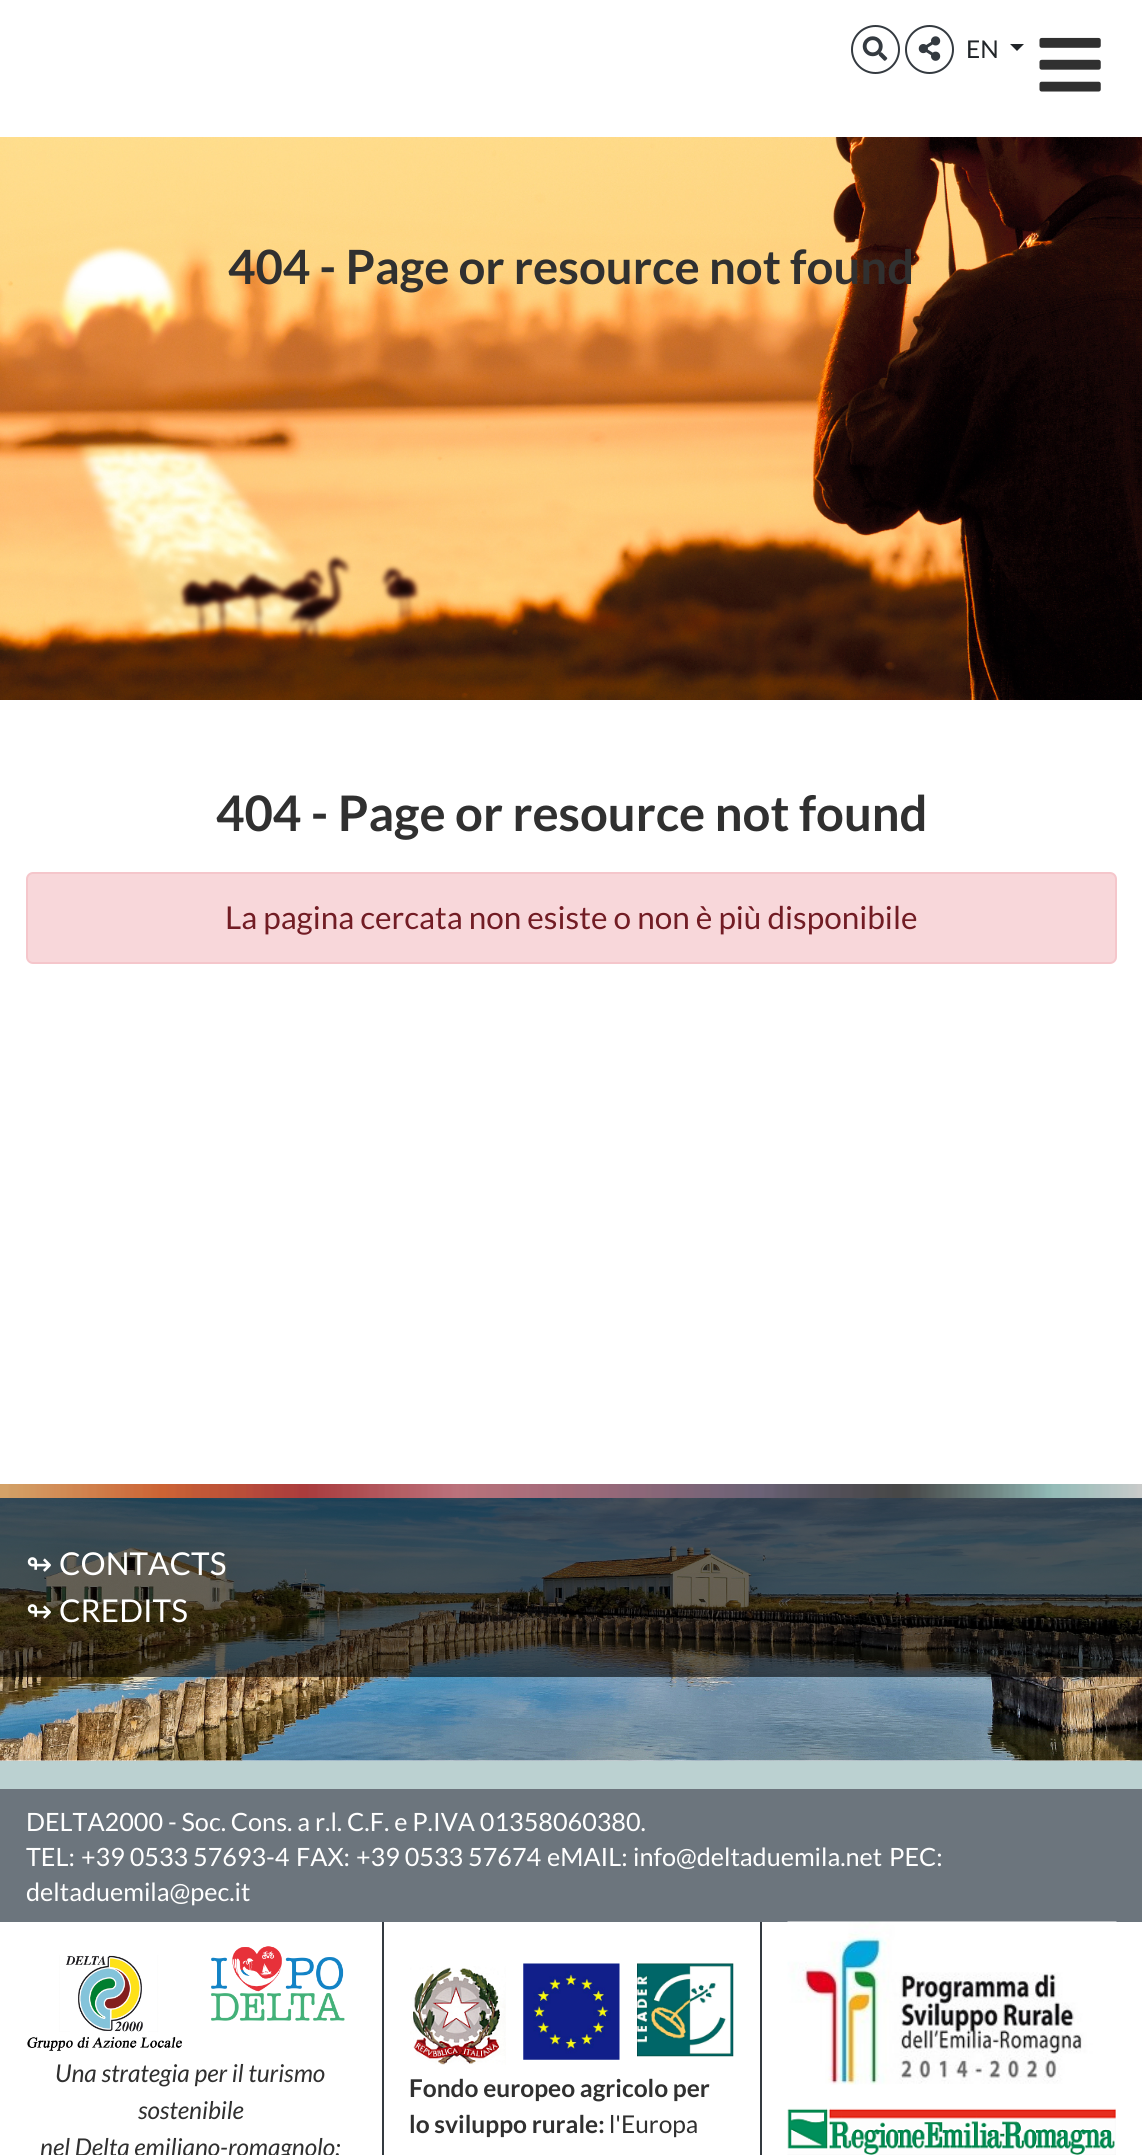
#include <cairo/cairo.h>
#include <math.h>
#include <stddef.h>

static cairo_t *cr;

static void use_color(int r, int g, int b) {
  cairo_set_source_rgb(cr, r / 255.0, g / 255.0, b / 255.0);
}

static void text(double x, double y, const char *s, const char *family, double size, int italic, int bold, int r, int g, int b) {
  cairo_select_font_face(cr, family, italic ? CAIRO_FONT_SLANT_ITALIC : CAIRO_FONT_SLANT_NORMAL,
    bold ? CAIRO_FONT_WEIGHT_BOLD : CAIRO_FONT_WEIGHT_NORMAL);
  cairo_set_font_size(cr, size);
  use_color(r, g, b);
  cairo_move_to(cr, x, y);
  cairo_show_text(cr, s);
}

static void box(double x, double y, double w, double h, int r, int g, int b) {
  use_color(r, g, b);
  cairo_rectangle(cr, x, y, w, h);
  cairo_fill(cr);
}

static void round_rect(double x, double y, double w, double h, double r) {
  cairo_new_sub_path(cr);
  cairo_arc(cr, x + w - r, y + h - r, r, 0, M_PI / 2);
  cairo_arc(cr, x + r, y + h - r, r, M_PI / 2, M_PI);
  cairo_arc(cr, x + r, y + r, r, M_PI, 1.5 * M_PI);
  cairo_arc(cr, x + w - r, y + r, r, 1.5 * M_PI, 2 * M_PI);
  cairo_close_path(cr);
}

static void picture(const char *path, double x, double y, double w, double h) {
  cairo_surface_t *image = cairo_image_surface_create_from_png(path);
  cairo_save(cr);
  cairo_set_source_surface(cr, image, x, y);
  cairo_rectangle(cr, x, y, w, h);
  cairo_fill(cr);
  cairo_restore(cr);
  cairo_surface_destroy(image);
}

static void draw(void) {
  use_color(255, 255, 255);
  cairo_paint(cr);
  cairo_arc(cr, 875.5, 49.5, 23.5, 0, 2 * M_PI);
  use_color(52, 58, 64);
  cairo_stroke(cr);
  picture("img_01.png", 862, 36, 26, 25);
  cairo_arc(cr, 929.5, 49.5, 23.5, 0, 2 * M_PI);
  cairo_stroke(cr);
  picture("img_02.png", 918, 36, 23, 25);
  use_color(33, 37, 41);
  cairo_new_path(cr);
  cairo_move_to(cr, 1010, 44);
  cairo_line_to(cr, 1024, 44);
  cairo_line_to(cr, 1017, 51);
  cairo_close_path(cr);
  cairo_fill(cr);
  picture("img_03.png", 1039, 37, 62, 55);
  picture("img_04.png", 0, 137, 1142, 563);
  use_color(248, 215, 218);
  round_rect(27, 873, 1089, 90, 6);
  cairo_fill_preserve(cr);
  use_color(245, 198, 203);
  cairo_stroke(cr);
  box(0, 1760, 1142, 1, 248, 249, 250);
  picture("img_05.png", 0, 1484, 1142, 14);
  picture("img_06.png", 0, 1498, 1142, 263);
  cairo_set_source_rgba(cr, 0, 0, 0, 0.6);
  cairo_rectangle(cr, 0, 1498, 1142, 179);
  cairo_fill(cr);
  box(0, 1789, 1142, 133, 108, 117, 125);
  box(0, 1761, 1142, 28, 187, 209, 209);
  picture("img_07.png", 27, 1955, 155, 96);
  picture("img_08.png", 211, 1946, 134, 75);
  box(760, 1922, 2, 233, 52, 58, 64);
  box(382, 1922, 2, 233, 52, 58, 64);
  picture("img_09.png", 410, 1966, 96, 99);
  picture("img_10.png", 523, 1963, 97, 97);
  picture("img_11.png", 637, 1963, 97, 94);
  picture("img_12.png", 787, 1921, 330, 164);
  picture("img_13.png", 787, 2108, 329, 47);
  text(966, 58, "EN", "Lato", 24.5, 0, 0, 33, 37, 41);
  text(228, 284, "404 - Page or resource not found", "Lato", 47.25, 0, 1, 48, 48, 48);
  text(216, 831, "404 - Page or resource not found", "Lato", 49, 0, 1, 48, 48, 48);
  text(225, 929, "La pagina cercata non esiste o non è più disponibile", "Lato", 31.5, 0, 0, 114, 28, 36);
  text(26, 1575, "↬", "DejaVu Sans", 31.5, 0, 0, 255, 255, 255);
  text(59, 1575, "CONTACTS", "Lato", 31.5, 0, 0, 255, 255, 255);
  text(26, 1622, "↬", "DejaVu Sans", 31.5, 0, 0, 255, 255, 255);
  text(59, 1622, "CREDITS", "Lato", 31.5, 0, 0, 255, 255, 255);
  text(26, 1831, "DELTA2000 - Soc. Cons. a r.l. C.F. e P.IVA 01358060380.", "Lato", 25.2, 0, 0, 255, 255, 255);
  text(26, 1866, "TEL:", "Lato", 25.2, 0, 0, 255, 255, 255);
  text(81, 1866, "+39 0533 57693-4", "Lato", 25.2, 0, 0, 255, 255, 255);
  text(296, 1866, "FAX:", "Lato", 25.2, 0, 0, 255, 255, 255);
  text(356, 1866, "+39 0533 57674", "Lato", 25.2, 0, 0, 255, 255, 255);
  text(547, 1866, "eMAIL:", "Lato", 25.2, 0, 0, 255, 255, 255);
  text(633, 1866, "info@deltaduemila.net", "Lato", 25.2, 0, 0, 255, 255, 255);
  text(889, 1866, "PEC:", "Lato", 25.2, 0, 0, 255, 255, 255);
  text(26, 1901, "deltaduemila@pec.it", "Lato", 25.2, 0, 0, 255, 255, 255);
  text(55, 2082, "Una strategia per il turismo", "Lato", 24.5, 1, 0, 48, 48, 48);
  text(138, 2119, "sostenibile", "Lato", 24.5, 1, 0, 48, 48, 48);
  text(40, 2156, "nel Delta emiliano-romagnolo:", "Lato", 24.5, 1, 0, 48, 48, 48);
  text(409, 2097, "Fondo europeo agricolo per", "Lato", 24.5, 0, 1, 48, 48, 48);
  text(409, 2133, "lo sviluppo rurale:", "Lato", 24.5, 0, 1, 48, 48, 48);
  text(609, 2133, "l'Europa", "Lato", 24.5, 0, 0, 48, 48, 48);
}

int main(void) {
  cairo_surface_t *surface = cairo_image_surface_create(CAIRO_FORMAT_RGB24, 1142, 2155);
  cr = cairo_create(surface);
  cairo_font_options_t *options = cairo_font_options_create();
  cairo_font_options_set_hint_metrics(options, CAIRO_HINT_METRICS_OFF);
  cairo_font_options_set_hint_style(options, CAIRO_HINT_STYLE_NONE);
  cairo_set_font_options(cr, options);
  cairo_set_miter_limit(cr, 4);
  draw();
  cairo_surface_write_to_png(surface, "out.png");
  cairo_font_options_destroy(options);
  cairo_destroy(cr);
  cairo_surface_destroy(surface);
  return 0;
}
